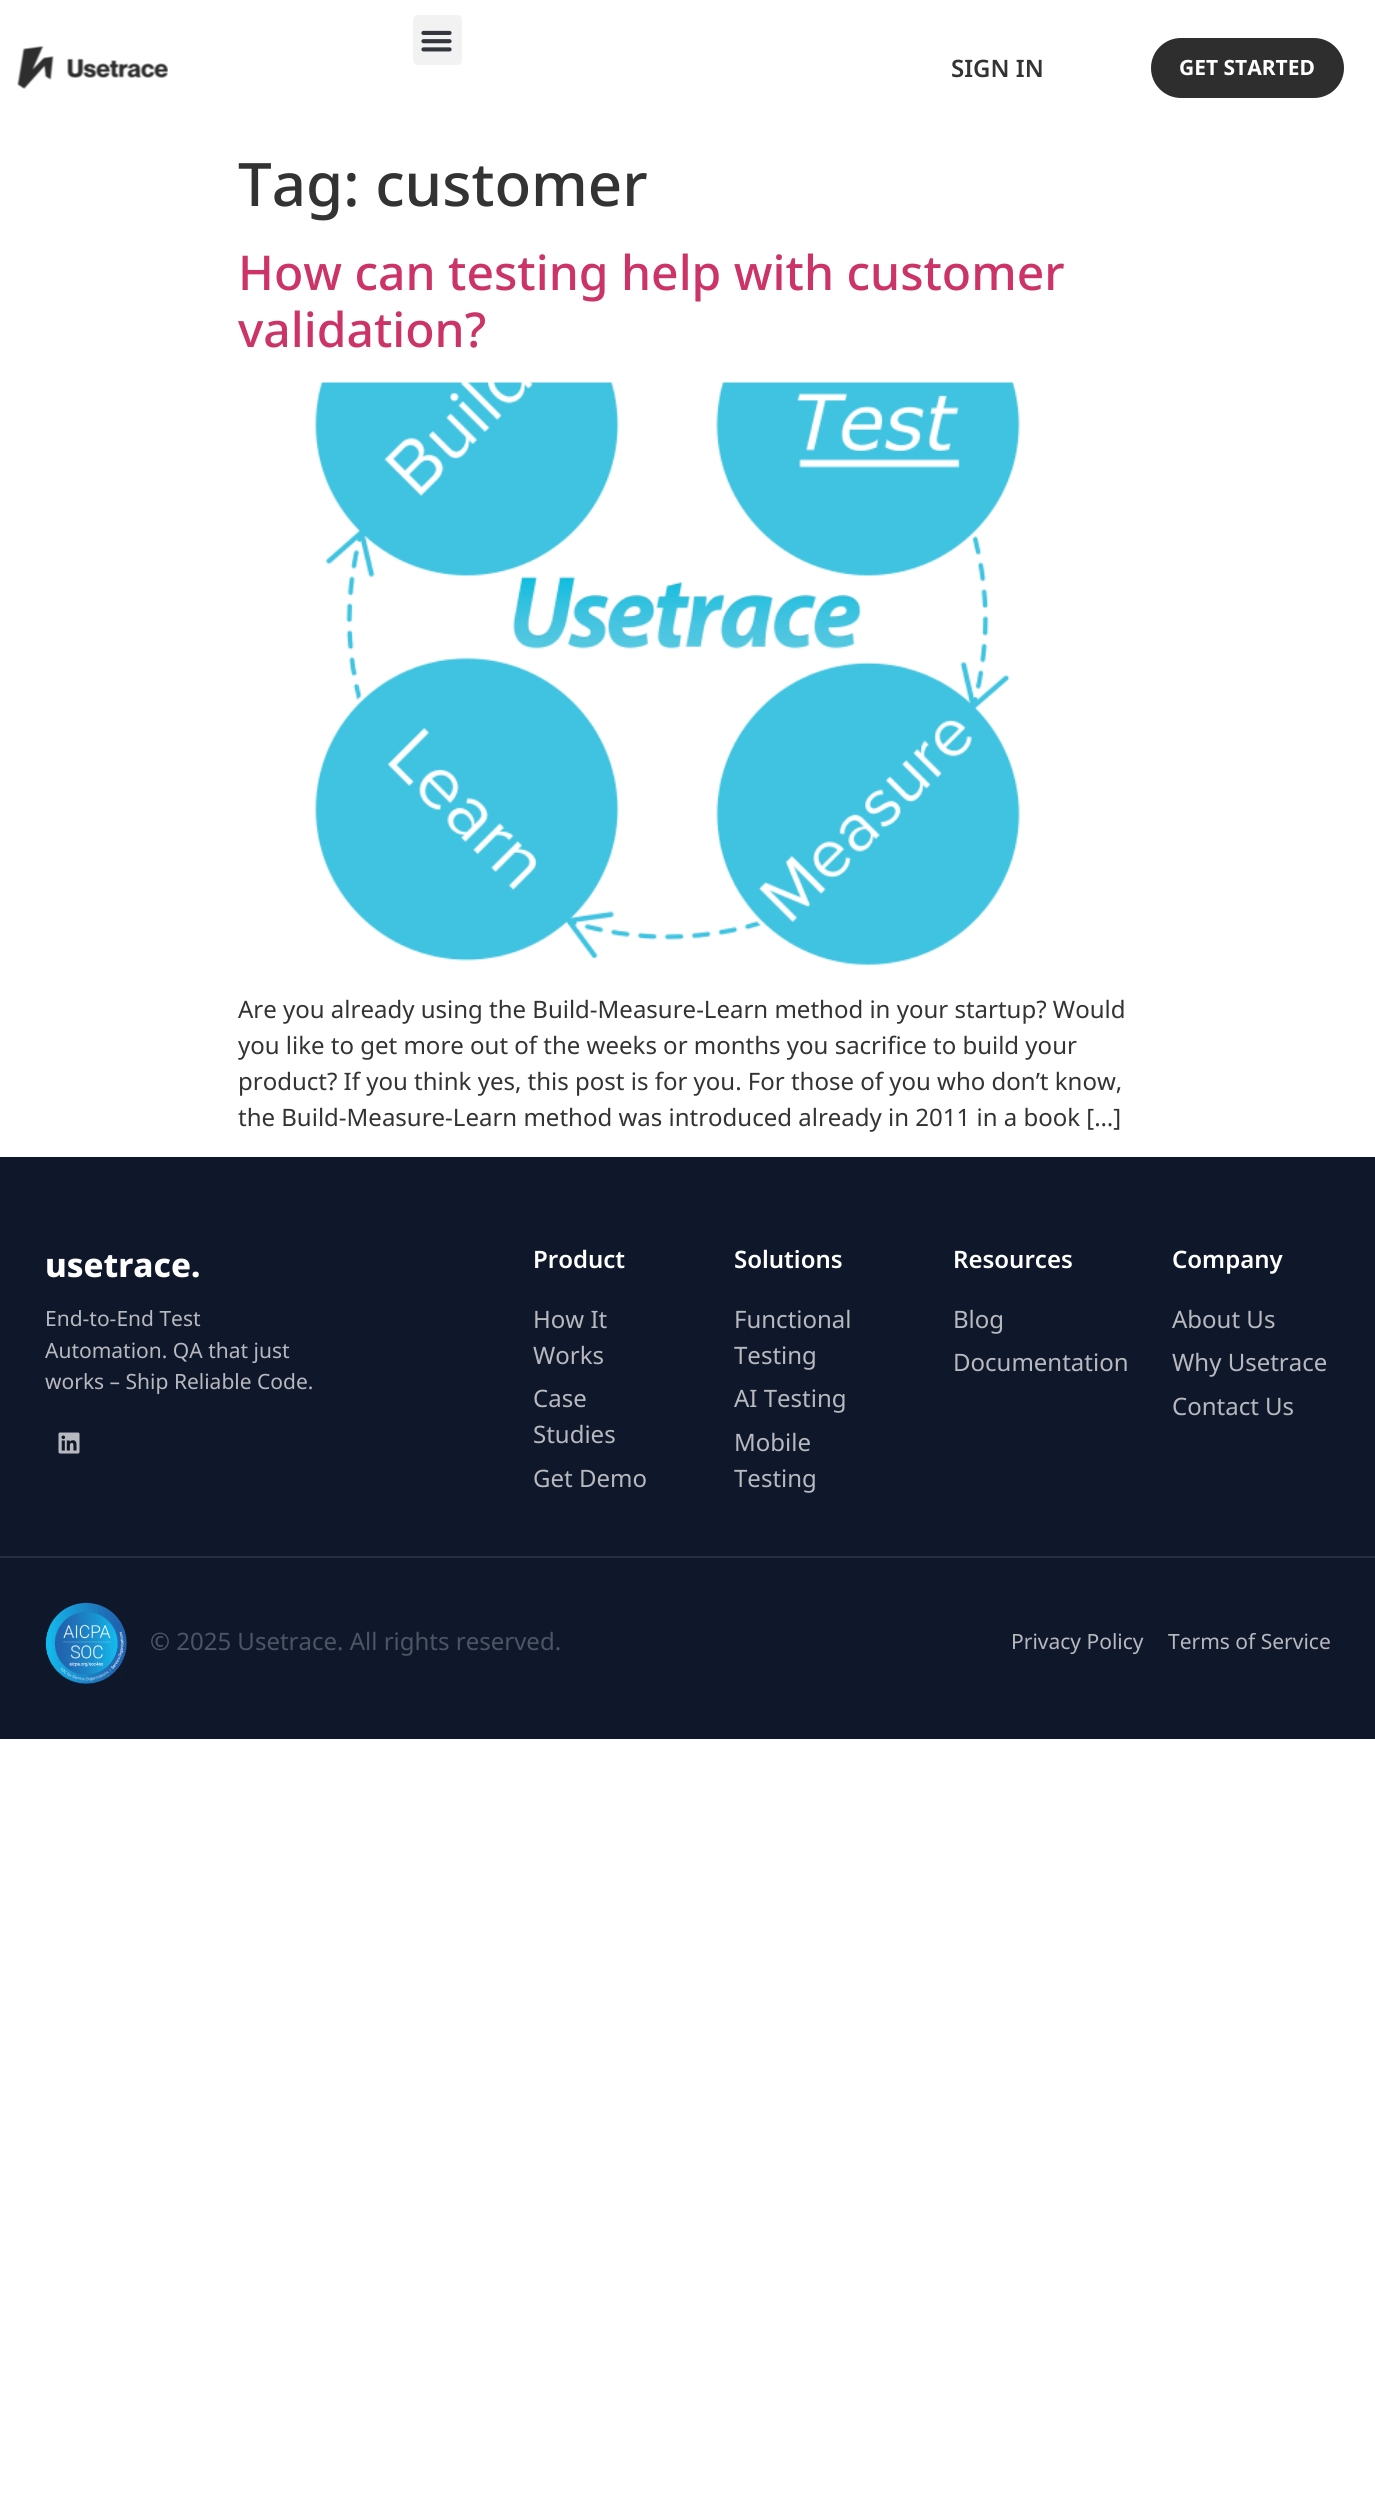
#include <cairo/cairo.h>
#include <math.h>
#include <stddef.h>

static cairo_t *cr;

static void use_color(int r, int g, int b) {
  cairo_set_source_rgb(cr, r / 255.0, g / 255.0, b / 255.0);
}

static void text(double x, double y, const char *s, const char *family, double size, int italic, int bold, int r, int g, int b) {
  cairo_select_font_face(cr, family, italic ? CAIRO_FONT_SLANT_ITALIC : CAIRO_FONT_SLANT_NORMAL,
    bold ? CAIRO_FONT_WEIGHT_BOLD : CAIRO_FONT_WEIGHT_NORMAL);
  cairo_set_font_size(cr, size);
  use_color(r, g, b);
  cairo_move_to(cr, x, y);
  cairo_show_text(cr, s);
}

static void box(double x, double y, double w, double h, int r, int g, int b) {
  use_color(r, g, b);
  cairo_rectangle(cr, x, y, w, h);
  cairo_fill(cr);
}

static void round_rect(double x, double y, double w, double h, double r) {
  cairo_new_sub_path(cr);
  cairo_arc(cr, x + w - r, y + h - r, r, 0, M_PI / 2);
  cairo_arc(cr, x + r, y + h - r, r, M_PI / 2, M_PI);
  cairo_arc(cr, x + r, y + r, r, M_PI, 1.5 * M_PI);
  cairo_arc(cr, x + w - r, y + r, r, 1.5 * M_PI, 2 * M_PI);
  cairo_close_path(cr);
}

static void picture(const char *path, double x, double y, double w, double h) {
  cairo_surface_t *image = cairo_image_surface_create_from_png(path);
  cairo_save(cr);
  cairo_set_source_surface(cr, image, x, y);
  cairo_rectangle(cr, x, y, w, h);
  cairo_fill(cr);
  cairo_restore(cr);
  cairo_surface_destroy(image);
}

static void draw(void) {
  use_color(255, 255, 255);
  cairo_paint(cr);
  picture("img_01.png", 17, 46, 151, 43);
  use_color(242, 242, 242);
  round_rect(413, 15, 49, 50, 5);
  cairo_fill(cr);
  picture("img_02.png", 421, 30, 31, 22);
  use_color(46, 46, 46);
  round_rect(1151, 38, 193, 60, 30);
  cairo_fill(cr);
  picture("img_03.png", 315, 382, 705, 583);
  box(0, 1157, 1375, 399, 15, 23, 42);
  picture("img_04.png", 58, 1432, 22, 22);
  box(0, 1558, 1375, 181, 15, 23, 42);
  box(0, 1556, 1375, 2, 39, 46, 63);
  picture("img_05.png", 45, 1602, 82, 82);
  text(951, 77, "SIGN IN", "Noto Sans SemiBold", 24, 0, 0, 51, 51, 51);
  text(1179, 75, "GET STARTED", "Noto Sans", 21, 0, 1, 255, 255, 255);
  text(238, 206, "Tag: customer", "Noto Sans Medium", 60, 0, 0, 51, 51, 51);
  text(238, 290, "How can testing help with customer", "Noto Sans Medium", 48, 0, 0, 204, 51, 102);
  text(238, 347, "validation?", "Noto Sans Medium", 48, 0, 0, 204, 51, 102);
  text(238, 1018, "Are you already using the Build-Measure-Learn method in your startup? Would", "Noto Sans", 24, 0, 0, 51, 51, 51);
  text(238, 1054, "you like to get more out of the weeks or months you sacrifice to build your", "Noto Sans", 24, 0, 0, 51, 51, 51);
  text(238, 1090, "product? If you think yes, this post is for you. For those of you who don’t know,", "Noto Sans", 24, 0, 0, 51, 51, 51);
  text(238, 1126, "the Build-Measure-Learn method was introduced already in 2011 in a book […]", "Noto Sans", 24, 0, 0, 51, 51, 51);
  text(45, 1277, "usetrace.", "Noto Sans ExtraBold", 33, 0, 0, 255, 255, 255);
  text(45, 1326, "End-to-End Test", "Noto Sans", 21, 0, 0, 183, 185, 191);
  text(45, 1358, "Automation. QA that just", "Noto Sans", 21, 0, 0, 183, 185, 191);
  text(45, 1389, "works – Ship Reliable Code.", "Noto Sans", 21, 0, 0, 183, 185, 191);
  text(533, 1268, "Product", "Noto Sans SemiBold", 24, 0, 0, 255, 255, 255);
  text(533, 1328, "How It", "Noto Sans", 24, 0, 0, 183, 185, 191);
  text(533, 1364, "Works", "Noto Sans", 24, 0, 0, 183, 185, 191);
  text(533, 1407, "Case", "Noto Sans", 24, 0, 0, 183, 185, 191);
  text(533, 1443, "Studies", "Noto Sans", 24, 0, 0, 183, 185, 191);
  text(533, 1487, "Get Demo", "Noto Sans", 24, 0, 0, 183, 185, 191);
  text(734, 1268, "Solutions", "Noto Sans SemiBold", 24, 0, 0, 255, 255, 255);
  text(734, 1328, "Functional", "Noto Sans", 24, 0, 0, 183, 185, 191);
  text(734, 1364, "Testing", "Noto Sans", 24, 0, 0, 183, 185, 191);
  text(734, 1407, "AI Testing", "Noto Sans", 24, 0, 0, 183, 185, 191);
  text(734, 1451, "Mobile", "Noto Sans", 24, 0, 0, 183, 185, 191);
  text(734, 1487, "Testing", "Noto Sans", 24, 0, 0, 183, 185, 191);
  text(953, 1268, "Resources", "Noto Sans SemiBold", 24, 0, 0, 255, 255, 255);
  text(953, 1328, "Blog", "Noto Sans", 24, 0, 0, 183, 185, 191);
  text(953, 1371, "Documentation", "Noto Sans", 24, 0, 0, 183, 185, 191);
  text(1172, 1268, "Company", "Noto Sans SemiBold", 24, 0, 0, 255, 255, 255);
  text(1172, 1328, "About Us", "Noto Sans", 24, 0, 0, 183, 185, 191);
  text(1172, 1371, "Why Usetrace", "Noto Sans", 24, 0, 0, 183, 185, 191);
  text(1172, 1415, "Contact Us", "Noto Sans", 24, 0, 0, 183, 185, 191);
  text(150, 1650, "© 2025 Usetrace. All rights reserved.", "Noto Sans", 24, 0, 0, 75, 85, 99);
  text(1011, 1649, "Privacy Policy", "Noto Sans", 21, 0, 0, 183, 185, 191);
  text(1168, 1649, "Terms of Service", "Noto Sans", 21, 0, 0, 183, 185, 191);
}

int main(void) {
  cairo_surface_t *surface = cairo_image_surface_create(CAIRO_FORMAT_RGB24, 1375, 2506);
  cr = cairo_create(surface);
  cairo_font_options_t *options = cairo_font_options_create();
  cairo_font_options_set_hint_metrics(options, CAIRO_HINT_METRICS_OFF);
  cairo_font_options_set_hint_style(options, CAIRO_HINT_STYLE_NONE);
  cairo_set_font_options(cr, options);
  cairo_set_miter_limit(cr, 4);
  draw();
  cairo_surface_write_to_png(surface, "out.png");
  cairo_font_options_destroy(options);
  cairo_destroy(cr);
  cairo_surface_destroy(surface);
  return 0;
}
